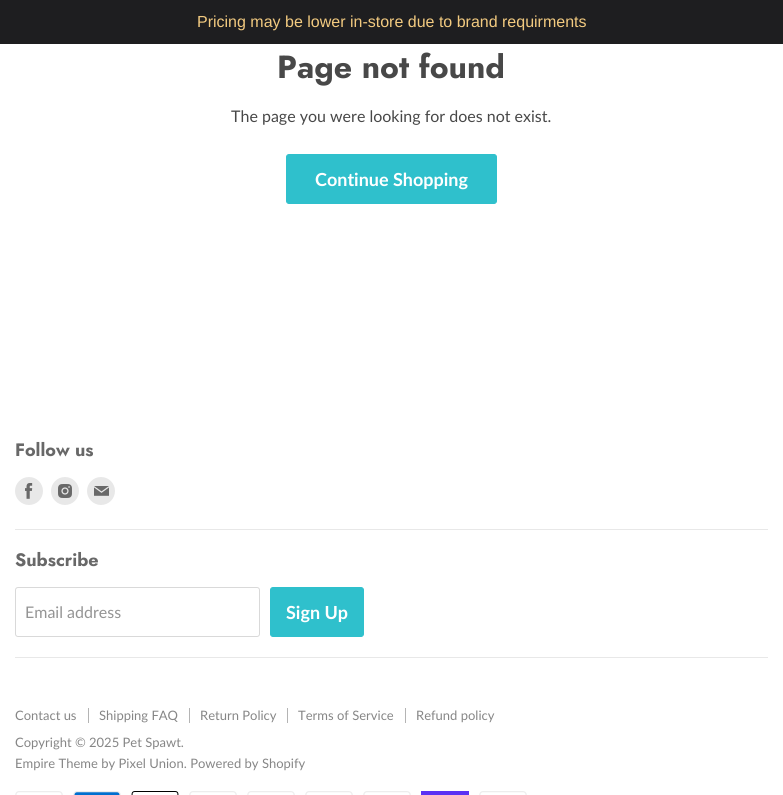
#include <cairo/cairo.h>
#include <math.h>
#include <stddef.h>

typedef struct { double x, y; const char *s; } line_t;
typedef struct { double x, y, w, h; unsigned color; } box_t;
static cairo_t *cr;

static void rgb(unsigned color)
{
	cairo_set_source_rgb(cr, (color >> 16) / 255.0, (color >> 8 & 255) / 255.0, (color & 255) / 255.0);
}

static void rrect(double x, double y, double w, double h, double r)
{
	cairo_new_sub_path(cr);
	cairo_arc(cr, x + w - r, y + h - r, r, 0, M_PI / 2);
	cairo_arc(cr, x + r, y + h - r, r, M_PI / 2, M_PI);
	cairo_arc(cr, x + r, y + r, r, M_PI, 1.5 * M_PI);
	cairo_arc(cr, x + w - r, y + r, r, 1.5 * M_PI, 2 * M_PI);
	cairo_close_path(cr);
}

static void image(const char *path, double x, double y, double w, double h)
{
	cairo_surface_t *image = cairo_image_surface_create_from_png(path);
	cairo_save(cr);
	cairo_set_source_surface(cr, image, x, y);
	cairo_rectangle(cr, x, y, w, h);
	cairo_fill(cr);
	cairo_restore(cr);
	cairo_surface_destroy(image);
}

int main(void) {
	cairo_surface_t *surface = cairo_image_surface_create(CAIRO_FORMAT_RGB24, 783, 795);
	cr = cairo_create(surface);
	cairo_font_options_t *options = cairo_font_options_create();
	cairo_font_options_set_hint_metrics(options, CAIRO_HINT_METRICS_OFF);
	cairo_font_options_set_hint_style(options, CAIRO_HINT_STYLE_NONE);
	cairo_set_font_options(cr, options);
	cairo_set_miter_limit(cr, 4);
	rgb(0xffffff);
	cairo_paint(cr);
	rgb(0x1e1e20);
	cairo_rectangle(cr, 0, 0, 783, 44);
	cairo_fill(cr);
	rgb(0x2fc0cc);
	rrect(286.5, 154.5, 210, 49, 2.5);
	cairo_fill_preserve(cr);
	cairo_set_line_width(cr, 1);
	cairo_stroke(cr);
	rgb(0xe8e8e8);
	cairo_rectangle(cr, 15, 529, 753, 1);
	cairo_fill(cr);
	cairo_arc(cr, 29, 491, 14, 0, 2 * M_PI);
	cairo_fill(cr);
	image("img/1.png", 25, 483, 8, 16);
	cairo_arc(cr, 65, 491, 14, 0, 2 * M_PI);
	cairo_fill(cr);
	image("img/2.png", 58, 484, 14, 14);
	cairo_arc(cr, 101, 491, 14, 0, 2 * M_PI);
	cairo_fill(cr);
	image("img/3.png", 94, 486, 15, 10);
	cairo_rectangle(cr, 15, 657, 753, 1);
	cairo_fill(cr);
	rrect(15.5, 587.5, 244, 49, 2.5);
	rgb(0xd9d9d9);
	cairo_stroke(cr);
	rgb(0x2fc0cc);
	rrect(270.5, 587.5, 93, 49, 2.5);
	cairo_fill_preserve(cr);
	cairo_stroke(cr);
	{
		static const box_t items[] = {
			{88, 708, 1, 15, 0xb4b4b4},
			{189, 708, 1, 15, 0xb4b4b4},
			{287, 708, 1, 15, 0xb4b4b4},
			{405, 708, 1, 15, 0xb4b4b4},
		};
		for (size_t i = 0; i < sizeof items / sizeof *items; i++) {
			rgb(items[i].color);
			cairo_rectangle(cr, items[i].x, items[i].y, items[i].w, items[i].h);
			cairo_fill(cr);
		}
	}
	image("img/4.png", 15, 791, 48, 4);
	image("img/5.png", 73, 791, 48, 4);
	image("img/6.png", 131, 791, 48, 4);
	image("img/4.png", 189, 791, 48, 4);
	image("img/4.png", 247, 791, 48, 4);
	image("img/4.png", 305, 791, 48, 4);
	image("img/4.png", 363, 791, 48, 4);
	rgb(0x5a31f4);
	cairo_rectangle(cr, 421, 791, 48, 4);
	cairo_fill(cr);
	image("img/4.png", 479, 791, 48, 4);
	cairo_select_font_face(cr, "Liberation Sans", CAIRO_FONT_SLANT_NORMAL, CAIRO_FONT_WEIGHT_NORMAL);
	cairo_set_font_size(cr, 16);
	rgb(0xf2ca80);
	cairo_move_to(cr, 197, 27);
	cairo_show_text(cr, "Pricing may be lower in-store due to brand requirments");
	cairo_select_font_face(cr, "Jost", CAIRO_FONT_SLANT_NORMAL, CAIRO_FONT_WEIGHT_BOLD);
	cairo_set_font_size(cr, 32);
	rgb(0x484848);
	cairo_move_to(cr, 277, 78);
	cairo_show_text(cr, "Page not found");
	cairo_select_font_face(cr, "Lato", CAIRO_FONT_SLANT_NORMAL, CAIRO_FONT_WEIGHT_NORMAL);
	cairo_set_font_size(cr, 16);
	cairo_move_to(cr, 231, 122);
	cairo_show_text(cr, "The page you were looking for does not exist.");
	cairo_select_font_face(cr, "Lato", CAIRO_FONT_SLANT_NORMAL, CAIRO_FONT_WEIGHT_BOLD);
	cairo_set_font_size(cr, 18);
	rgb(0xffffff);
	cairo_move_to(cr, 315, 186);
	cairo_show_text(cr, "Continue Shopping");
	cairo_select_font_face(cr, "Jost", CAIRO_FONT_SLANT_NORMAL, CAIRO_FONT_WEIGHT_BOLD);
	rgb(0x686868);
	cairo_move_to(cr, 15, 456);
	cairo_show_text(cr, "Follow us");
	cairo_move_to(cr, 15, 566);
	cairo_show_text(cr, "Subscribe");
	cairo_select_font_face(cr, "Lato", CAIRO_FONT_SLANT_NORMAL, CAIRO_FONT_WEIGHT_NORMAL);
	cairo_set_font_size(cr, 16);
	rgb(0x949494);
	cairo_move_to(cr, 25, 618);
	cairo_show_text(cr, "Email address");
	cairo_select_font_face(cr, "Lato", CAIRO_FONT_SLANT_NORMAL, CAIRO_FONT_WEIGHT_BOLD);
	cairo_set_font_size(cr, 18);
	rgb(0xffffff);
	cairo_move_to(cr, 286, 619);
	cairo_show_text(cr, "Sign Up");
	cairo_select_font_face(cr, "Lato", CAIRO_FONT_SLANT_NORMAL, CAIRO_FONT_WEIGHT_NORMAL);
	cairo_set_font_size(cr, 13);
	rgb(0x868686);
	{
		static const line_t items[] = {
			{15, 720, "Contact us"},
			{99, 720, "Shipping FAQ"},
			{200, 720, "Return Policy"},
			{298, 720, "Terms of Service"},
			{416, 720, "Refund policy"},
			{15, 747, "Copyright © 2025 Pet Spawt."},
			{15, 768, "Empire Theme by Pixel Union. Powered by Shopify"},
		};
		for (size_t i = 0; i < sizeof items / sizeof *items; i++) {
			cairo_move_to(cr, items[i].x, items[i].y);
			cairo_show_text(cr, items[i].s);
		}
	}
	cairo_surface_write_to_png(surface, "page.png");
	cairo_font_options_destroy(options);
	cairo_destroy(cr);
	cairo_surface_destroy(surface);
	return 0;
}
